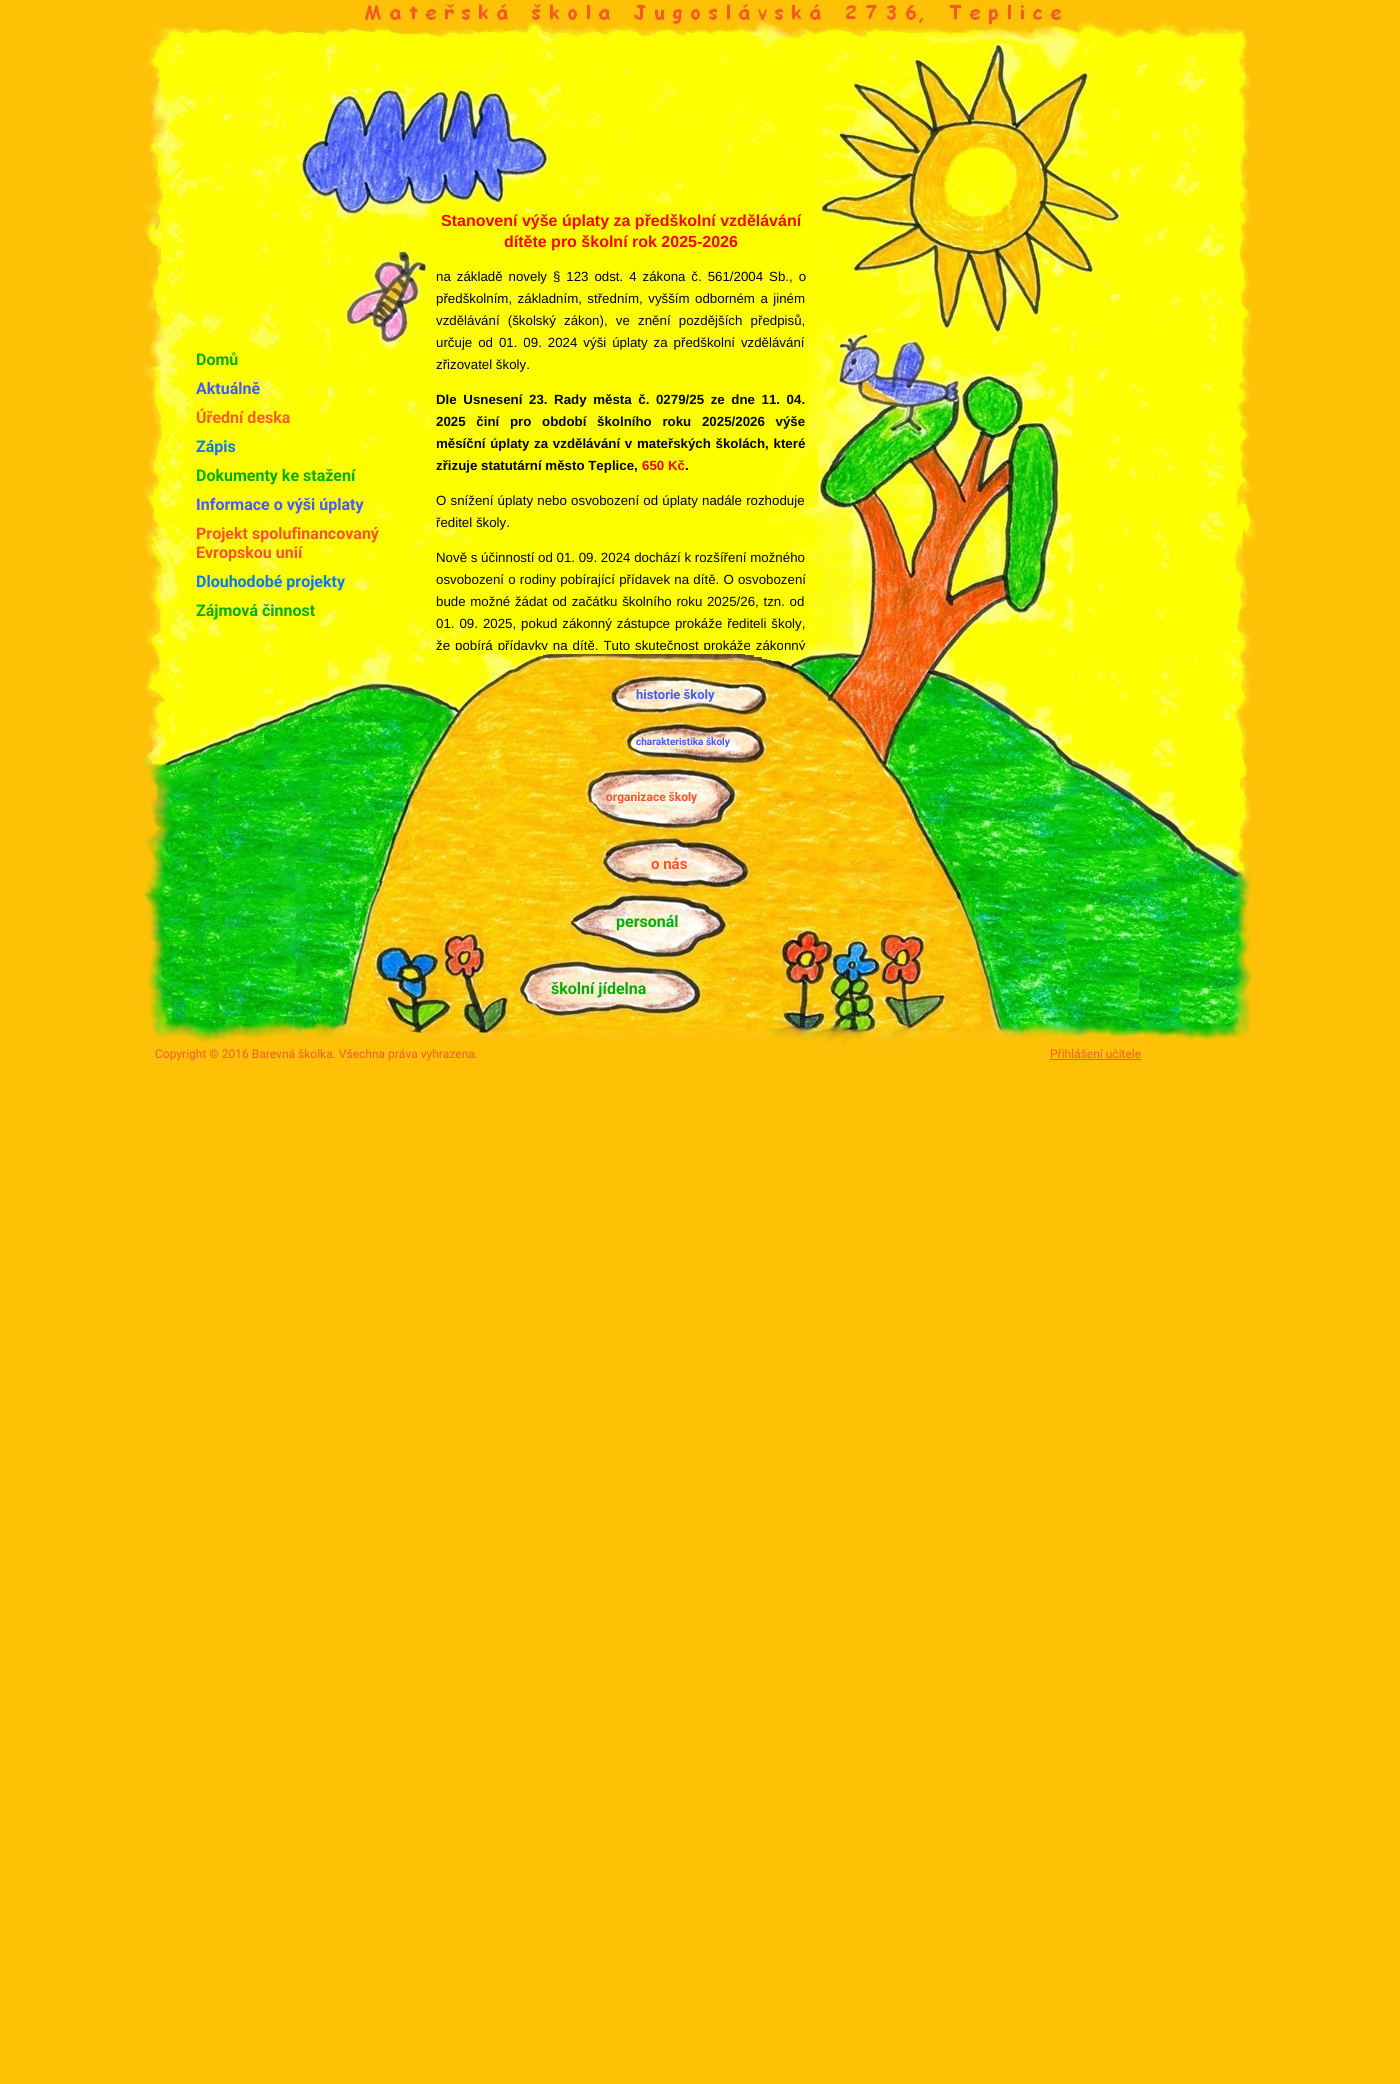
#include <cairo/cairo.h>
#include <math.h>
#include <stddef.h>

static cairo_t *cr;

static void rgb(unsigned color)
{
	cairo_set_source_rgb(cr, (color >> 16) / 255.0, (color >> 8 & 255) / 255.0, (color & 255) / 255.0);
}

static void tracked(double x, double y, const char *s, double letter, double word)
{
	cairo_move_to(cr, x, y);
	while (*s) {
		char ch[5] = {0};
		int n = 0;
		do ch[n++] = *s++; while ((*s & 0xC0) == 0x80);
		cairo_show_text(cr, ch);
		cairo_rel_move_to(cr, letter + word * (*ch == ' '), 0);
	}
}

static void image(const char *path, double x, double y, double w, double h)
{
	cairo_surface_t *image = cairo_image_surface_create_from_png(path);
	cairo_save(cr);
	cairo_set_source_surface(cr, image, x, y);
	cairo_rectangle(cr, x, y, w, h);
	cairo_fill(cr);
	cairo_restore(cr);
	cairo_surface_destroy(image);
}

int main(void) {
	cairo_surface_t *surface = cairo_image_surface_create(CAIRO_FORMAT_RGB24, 1400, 2084);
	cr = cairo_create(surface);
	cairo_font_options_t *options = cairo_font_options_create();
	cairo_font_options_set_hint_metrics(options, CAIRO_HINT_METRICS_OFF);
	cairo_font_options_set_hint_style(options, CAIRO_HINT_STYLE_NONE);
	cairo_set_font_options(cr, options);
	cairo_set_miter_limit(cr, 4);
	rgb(0xfec106);
	cairo_paint(cr);
	image("img/1.png", 141, 0, 1120, 1045);
	rgb(0xfd5a2e);
	cairo_rectangle(cr, 1050, 1059, 91, 1);
	cairo_fill(cr);
	cairo_select_font_face(cr, "Roboto", CAIRO_FONT_SLANT_NORMAL, CAIRO_FONT_WEIGHT_BOLD);
	cairo_set_font_size(cr, 16);
	rgb(0x03ac0d);
	cairo_move_to(cr, 196, 365);
	cairo_show_text(cr, "Domů");
	rgb(0x455af7);
	cairo_move_to(cr, 196, 394);
	cairo_show_text(cr, "Aktuálně");
	rgb(0xfd5a2e);
	cairo_move_to(cr, 196, 423);
	cairo_show_text(cr, "Úřední deska");
	rgb(0x047af1);
	cairo_move_to(cr, 196, 452);
	cairo_show_text(cr, "Zápis");
	rgb(0x03ac0d);
	cairo_move_to(cr, 196, 481);
	cairo_show_text(cr, "Dokumenty ke stažení");
	rgb(0x455af7);
	cairo_move_to(cr, 196, 510);
	cairo_show_text(cr, "Informace o výši úplaty");
	rgb(0xfd522d);
	cairo_move_to(cr, 196, 539);
	cairo_show_text(cr, "Projekt spolufinancovaný");
	cairo_move_to(cr, 196, 558);
	cairo_show_text(cr, "Evropskou unií");
	rgb(0x047af1);
	cairo_move_to(cr, 196, 587);
	cairo_show_text(cr, "Dlouhodobé projekty");
	rgb(0x03ac0d);
	cairo_move_to(cr, 196, 616);
	cairo_show_text(cr, "Zájmová činnost");
	cairo_select_font_face(cr, "Liberation Sans", CAIRO_FONT_SLANT_NORMAL, CAIRO_FONT_WEIGHT_BOLD);
	rgb(0xff0000);
	cairo_move_to(cr, 441, 226);
	cairo_show_text(cr, "Stanovení výše úplaty za předškolní vzdělávání");
	cairo_move_to(cr, 504, 247);
	cairo_show_text(cr, "dítěte pro školní rok 2025-2026");
	cairo_select_font_face(cr, "Liberation Sans", CAIRO_FONT_SLANT_NORMAL, CAIRO_FONT_WEIGHT_NORMAL);
	cairo_set_font_size(cr, 13.3);
	rgb(0x000000);
	tracked(436, 281, "na základě novely § 123 odst. 4 zákona č. 561/2004 Sb., o", 0, 2.25);
	tracked(436, 303, "předškolním, základním, středním, vyšším odborném a jiném", 0, 1.75);
	tracked(436, 325, "vzdělávání (školský zákon), ve znění pozdějších předpisů,", 0, 4.5);
	tracked(436, 347, "určuje od 01. 09. 2024 výši úplaty za předškolní vzdělávání", 0, 2.25);
	cairo_move_to(cr, 436, 369);
	cairo_show_text(cr, "zřizovatel školy.");
	cairo_select_font_face(cr, "Liberation Sans", CAIRO_FONT_SLANT_NORMAL, CAIRO_FONT_WEIGHT_BOLD);
	tracked(436, 404, "Dle Usnesení 23. Rady města č. 0279/25 ze dne 11. 04.", 0, 2.9);
	tracked(436, 426, "2025 činí pro období školního roku 2025/2026 výše", 0, 7);
	tracked(436, 448, "měsíční úplaty za vzdělávání v mateřských školách, které", 0, 1);
	cairo_move_to(cr, 436, 470);
	cairo_show_text(cr, "zřizuje statutární město Teplice,");
	rgb(0xff0000);
	cairo_move_to(cr, 642, 470);
	cairo_show_text(cr, "650 Kč");
	rgb(0x000000);
	cairo_move_to(cr, 685, 470);
	cairo_show_text(cr, ".");
	cairo_select_font_face(cr, "Liberation Sans", CAIRO_FONT_SLANT_NORMAL, CAIRO_FONT_WEIGHT_NORMAL);
	tracked(436, 505, "O snížení úplaty nebo osvobození od úplaty nadále rozhoduje", 0, 0.5);
	cairo_move_to(cr, 436, 527);
	cairo_show_text(cr, "ředitel školy.");
	cairo_move_to(cr, 436, 562);
	cairo_show_text(cr, "Nově s účinností od 01. 09. 2024 dochází k rozšíření možného");
	tracked(436, 584, "osvobození o rodiny pobírající přídavek na dítě. O osvobození", 0, 0.5);
	tracked(436, 606, "bude možné žádat od začátku školního roku 2025/26, tzn. od", 0, 1);
	tracked(436, 628, "01. 09. 2025, pokud zákonný zástupce prokáže řediteli školy,", 0, 1.25);
	cairo_save(cr);
	cairo_rectangle(cr, 436, 210, 380, 440);
	cairo_clip(cr);
	tracked(436, 650, "že pobírá přídavky na dítě. Tuto skutečnost prokáže zákonný", 0, 1.25);
	cairo_restore(cr);
	cairo_select_font_face(cr, "Roboto", CAIRO_FONT_SLANT_NORMAL, CAIRO_FONT_WEIGHT_BOLD);
	cairo_set_font_size(cr, 13);
	rgb(0x455af7);
	cairo_move_to(cr, 636, 699);
	cairo_show_text(cr, "historie školy");
	cairo_set_font_size(cr, 10);
	cairo_move_to(cr, 636, 745);
	cairo_show_text(cr, "charakteristika školy");
	cairo_set_font_size(cr, 12);
	rgb(0xfd522d);
	cairo_move_to(cr, 606, 801);
	cairo_show_text(cr, "organizace školy");
	cairo_set_font_size(cr, 15);
	cairo_move_to(cr, 651, 869);
	cairo_show_text(cr, "o nás");
	cairo_set_font_size(cr, 16);
	rgb(0x03ac0d);
	cairo_move_to(cr, 616, 927);
	cairo_show_text(cr, "personál");
	cairo_move_to(cr, 551, 994);
	cairo_show_text(cr, "školní jídelna");
	cairo_select_font_face(cr, "Roboto", CAIRO_FONT_SLANT_NORMAL, CAIRO_FONT_WEIGHT_NORMAL);
	cairo_set_font_size(cr, 12);
	rgb(0xfd5a2e);
	cairo_move_to(cr, 155, 1058);
	cairo_show_text(cr, "Copyright © 2016 Barevná školka. Všechna práva vyhrazena.");
	cairo_move_to(cr, 1050, 1058);
	cairo_show_text(cr, "Přihlášení učitele");
	cairo_surface_write_to_png(surface, "page.png");
	cairo_font_options_destroy(options);
	cairo_destroy(cr);
	cairo_surface_destroy(surface);
	return 0;
}
